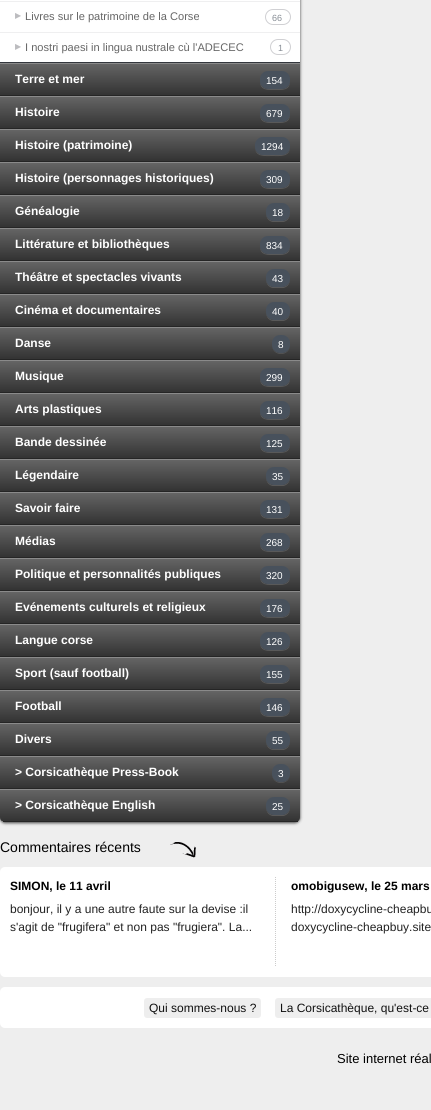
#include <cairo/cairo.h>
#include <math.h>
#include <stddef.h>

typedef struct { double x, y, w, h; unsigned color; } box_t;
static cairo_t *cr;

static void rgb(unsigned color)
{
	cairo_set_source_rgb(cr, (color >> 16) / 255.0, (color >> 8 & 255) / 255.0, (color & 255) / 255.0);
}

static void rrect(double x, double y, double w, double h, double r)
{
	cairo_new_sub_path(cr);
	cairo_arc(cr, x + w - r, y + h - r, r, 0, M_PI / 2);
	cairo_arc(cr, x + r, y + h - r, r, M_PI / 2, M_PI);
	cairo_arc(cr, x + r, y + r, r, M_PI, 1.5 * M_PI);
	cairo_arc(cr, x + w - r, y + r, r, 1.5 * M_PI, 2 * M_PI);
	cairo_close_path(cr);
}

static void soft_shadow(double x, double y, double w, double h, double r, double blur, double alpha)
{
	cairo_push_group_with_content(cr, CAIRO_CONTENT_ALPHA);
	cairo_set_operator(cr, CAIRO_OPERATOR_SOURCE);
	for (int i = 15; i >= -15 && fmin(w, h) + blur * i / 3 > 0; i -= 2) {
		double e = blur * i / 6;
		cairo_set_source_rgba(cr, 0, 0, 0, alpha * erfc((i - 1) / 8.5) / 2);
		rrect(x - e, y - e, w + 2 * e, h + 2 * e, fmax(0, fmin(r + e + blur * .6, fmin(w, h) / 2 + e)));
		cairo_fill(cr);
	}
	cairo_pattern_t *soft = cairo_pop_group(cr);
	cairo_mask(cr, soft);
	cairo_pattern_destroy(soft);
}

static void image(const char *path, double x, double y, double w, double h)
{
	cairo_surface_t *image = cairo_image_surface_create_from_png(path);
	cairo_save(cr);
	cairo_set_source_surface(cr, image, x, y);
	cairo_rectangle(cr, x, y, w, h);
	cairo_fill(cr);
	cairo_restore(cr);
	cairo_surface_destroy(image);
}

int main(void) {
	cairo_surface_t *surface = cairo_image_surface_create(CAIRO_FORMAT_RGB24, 431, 1110);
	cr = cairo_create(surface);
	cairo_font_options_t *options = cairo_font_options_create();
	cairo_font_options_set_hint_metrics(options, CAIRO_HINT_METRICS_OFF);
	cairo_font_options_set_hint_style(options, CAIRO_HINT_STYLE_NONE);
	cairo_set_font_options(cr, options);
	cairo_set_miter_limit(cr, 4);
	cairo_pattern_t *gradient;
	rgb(0xeeeeee);
	cairo_paint(cr);
	rgb(0x000000);
	soft_shadow(0, -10, 300, 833, 5, 1.5, 0.73);
	{
		static const box_t items[] = {
			{0, 0, 300, 1, 0xffffff},
			{0, 1, 300, 1, 0xefeff0},
			{0, 2, 300, 30, 0xffffff},
			{0, 32, 300, 1, 0xefeff0},
		};
		for (size_t i = 0; i < sizeof items / sizeof *items; i++) {
			rgb(items[i].color);
			cairo_rectangle(cr, items[i].x, items[i].y, items[i].w, items[i].h);
			cairo_fill(cr);
		}
	}
	rrect(265.5, 9.5, 25, 15, 7.5);
	rgb(0xd0d0d3);
	cairo_set_line_width(cr, 1);
	cairo_stroke(cr);
	rgb(0xffffff);
	cairo_rectangle(cr, 0, 33, 300, 29);
	cairo_fill(cr);
	rgb(0x33373d);
	cairo_rectangle(cr, 0, 62, 300, 1);
	cairo_fill(cr);
	rrect(270.5, 39.5, 20, 15, 7.5);
	rgb(0xd0d0d3);
	cairo_stroke(cr);
	gradient = cairo_pattern_create_linear(150, 63, 150, 95);
	cairo_pattern_add_color_stop_rgba(gradient, 0, 0.4, 0.4, 0.4, 1);
	cairo_pattern_add_color_stop_rgba(gradient, 1, 0.2, 0.2, 0.2, 1);
	cairo_set_source(cr, gradient);
	cairo_pattern_destroy(gradient);
	cairo_rectangle(cr, 0, 64, 300, 31);
	cairo_fill(cr);
	rgb(0x8a8a8a);
	cairo_rectangle(cr, 0, 63, 300, 1);
	cairo_fill(cr);
	rgb(0x252525);
	cairo_rectangle(cr, 0, 95, 300, 1);
	cairo_fill(cr);
	cairo_set_source_rgba(cr, 1, 1, 1, 0.15);
	cairo_new_path(cr);
	cairo_move_to(cr, 260, 81);
	cairo_curve_to(cr, 260, 91, 268, 90, 275, 90);
	cairo_curve_to(cr, 282, 90, 290, 91, 290, 81);
	cairo_curve_to(cr, 290, 85.5, 286.5, 89, 282, 89);
	cairo_line_to(cr, 268, 89);
	cairo_curve_to(cr, 263.5, 89, 260, 85.5, 260, 81);
	cairo_close_path(cr);
	cairo_fill(cr);
	rgb(0x48515c);
	rrect(260, 71, 30, 18, 8);
	cairo_fill(cr);
	gradient = cairo_pattern_create_linear(150, 96, 150, 128);
	cairo_pattern_add_color_stop_rgba(gradient, 0, 0.4, 0.4, 0.4, 1);
	cairo_pattern_add_color_stop_rgba(gradient, 1, 0.2, 0.2, 0.2, 1);
	cairo_set_source(cr, gradient);
	cairo_pattern_destroy(gradient);
	cairo_rectangle(cr, 0, 97, 300, 31);
	cairo_fill(cr);
	rgb(0x8a8a8a);
	cairo_rectangle(cr, 0, 96, 300, 1);
	cairo_fill(cr);
	rgb(0x252525);
	cairo_rectangle(cr, 0, 128, 300, 1);
	cairo_fill(cr);
	cairo_set_source_rgba(cr, 1, 1, 1, 0.15);
	cairo_new_path(cr);
	cairo_move_to(cr, 260, 114);
	cairo_curve_to(cr, 260, 124, 268, 123, 275, 123);
	cairo_curve_to(cr, 282, 123, 290, 124, 290, 114);
	cairo_curve_to(cr, 290, 118.5, 286.5, 122, 282, 122);
	cairo_line_to(cr, 268, 122);
	cairo_curve_to(cr, 263.5, 122, 260, 118.5, 260, 114);
	cairo_close_path(cr);
	cairo_fill(cr);
	rgb(0x48515c);
	rrect(260, 104, 30, 18, 8);
	cairo_fill(cr);
	gradient = cairo_pattern_create_linear(150, 129, 150, 161);
	cairo_pattern_add_color_stop_rgba(gradient, 0, 0.4, 0.4, 0.4, 1);
	cairo_pattern_add_color_stop_rgba(gradient, 1, 0.2, 0.2, 0.2, 1);
	cairo_set_source(cr, gradient);
	cairo_pattern_destroy(gradient);
	cairo_rectangle(cr, 0, 130, 300, 31);
	cairo_fill(cr);
	rgb(0x8a8a8a);
	cairo_rectangle(cr, 0, 129, 300, 1);
	cairo_fill(cr);
	rgb(0x252525);
	cairo_rectangle(cr, 0, 161, 300, 1);
	cairo_fill(cr);
	cairo_set_source_rgba(cr, 1, 1, 1, 0.15);
	cairo_new_path(cr);
	cairo_move_to(cr, 255, 147);
	cairo_curve_to(cr, 255, 157.5, 265, 156, 272.5, 156);
	cairo_curve_to(cr, 280, 156, 290, 157.5, 290, 147);
	cairo_curve_to(cr, 290, 156.5, 279, 155, 272.5, 155);
	cairo_curve_to(cr, 266, 155, 255, 156.5, 255, 147);
	cairo_close_path(cr);
	cairo_fill(cr);
	rgb(0x48515c);
	rrect(255, 137, 35, 18, 8);
	cairo_fill(cr);
	gradient = cairo_pattern_create_linear(150, 162, 150, 194);
	cairo_pattern_add_color_stop_rgba(gradient, 0, 0.4, 0.4, 0.4, 1);
	cairo_pattern_add_color_stop_rgba(gradient, 1, 0.2, 0.2, 0.2, 1);
	cairo_set_source(cr, gradient);
	cairo_pattern_destroy(gradient);
	cairo_rectangle(cr, 0, 163, 300, 31);
	cairo_fill(cr);
	rgb(0x8a8a8a);
	cairo_rectangle(cr, 0, 162, 300, 1);
	cairo_fill(cr);
	rgb(0x252525);
	cairo_rectangle(cr, 0, 194, 300, 1);
	cairo_fill(cr);
	cairo_set_source_rgba(cr, 1, 1, 1, 0.15);
	cairo_new_path(cr);
	cairo_move_to(cr, 260, 180);
	cairo_curve_to(cr, 260, 190, 268, 189, 275, 189);
	cairo_curve_to(cr, 282, 189, 290, 190, 290, 180);
	cairo_curve_to(cr, 290, 184.5, 286.5, 188, 282, 188);
	cairo_line_to(cr, 268, 188);
	cairo_curve_to(cr, 263.5, 188, 260, 184.5, 260, 180);
	cairo_close_path(cr);
	cairo_fill(cr);
	rgb(0x48515c);
	rrect(260, 170, 30, 18, 8);
	cairo_fill(cr);
	gradient = cairo_pattern_create_linear(150, 195, 150, 227);
	cairo_pattern_add_color_stop_rgba(gradient, 0, 0.4, 0.4, 0.4, 1);
	cairo_pattern_add_color_stop_rgba(gradient, 1, 0.2, 0.2, 0.2, 1);
	cairo_set_source(cr, gradient);
	cairo_pattern_destroy(gradient);
	cairo_rectangle(cr, 0, 196, 300, 31);
	cairo_fill(cr);
	rgb(0x8a8a8a);
	cairo_rectangle(cr, 0, 195, 300, 1);
	cairo_fill(cr);
	rgb(0x252525);
	cairo_rectangle(cr, 0, 227, 300, 1);
	cairo_fill(cr);
	cairo_set_source_rgba(cr, 1, 1, 1, 0.15);
	cairo_new_path(cr);
	cairo_move_to(cr, 266, 213);
	cairo_curve_to(cr, 266, 217, 268, 221, 272.5, 222);
	cairo_line_to(cr, 283.5, 222);
	cairo_curve_to(cr, 288, 221, 290, 217, 290, 213);
	cairo_curve_to(cr, 290, 217.5, 286.5, 221, 282, 221);
	cairo_line_to(cr, 274, 221);
	cairo_curve_to(cr, 269.5, 221, 266, 217.5, 266, 213);
	cairo_close_path(cr);
	cairo_fill(cr);
	rgb(0x48515c);
	rrect(266, 203, 24, 18, 8);
	cairo_fill(cr);
	gradient = cairo_pattern_create_linear(150, 228, 150, 260);
	cairo_pattern_add_color_stop_rgba(gradient, 0, 0.4, 0.4, 0.4, 1);
	cairo_pattern_add_color_stop_rgba(gradient, 1, 0.2, 0.2, 0.2, 1);
	cairo_set_source(cr, gradient);
	cairo_pattern_destroy(gradient);
	cairo_rectangle(cr, 0, 229, 300, 31);
	cairo_fill(cr);
	rgb(0x8a8a8a);
	cairo_rectangle(cr, 0, 228, 300, 1);
	cairo_fill(cr);
	rgb(0x252525);
	cairo_rectangle(cr, 0, 260, 300, 1);
	cairo_fill(cr);
	cairo_set_source_rgba(cr, 1, 1, 1, 0.15);
	cairo_new_path(cr);
	cairo_move_to(cr, 260, 246);
	cairo_curve_to(cr, 260, 256, 268, 255, 275, 255);
	cairo_curve_to(cr, 282, 255, 290, 256, 290, 246);
	cairo_curve_to(cr, 290, 250.5, 286.5, 254, 282, 254);
	cairo_line_to(cr, 268, 254);
	cairo_curve_to(cr, 263.5, 254, 260, 250.5, 260, 246);
	cairo_close_path(cr);
	cairo_fill(cr);
	rgb(0x48515c);
	rrect(260, 236, 30, 18, 8);
	cairo_fill(cr);
	gradient = cairo_pattern_create_linear(150, 261, 150, 293);
	cairo_pattern_add_color_stop_rgba(gradient, 0, 0.4, 0.4, 0.4, 1);
	cairo_pattern_add_color_stop_rgba(gradient, 1, 0.2, 0.2, 0.2, 1);
	cairo_set_source(cr, gradient);
	cairo_pattern_destroy(gradient);
	cairo_rectangle(cr, 0, 262, 300, 31);
	cairo_fill(cr);
	rgb(0x8a8a8a);
	cairo_rectangle(cr, 0, 261, 300, 1);
	cairo_fill(cr);
	rgb(0x252525);
	cairo_rectangle(cr, 0, 293, 300, 1);
	cairo_fill(cr);
	cairo_set_source_rgba(cr, 1, 1, 1, 0.15);
	cairo_new_path(cr);
	cairo_move_to(cr, 266, 279);
	cairo_curve_to(cr, 266, 283, 268, 287, 272.5, 288);
	cairo_line_to(cr, 283.5, 288);
	cairo_curve_to(cr, 288, 287, 290, 283, 290, 279);
	cairo_curve_to(cr, 290, 283.5, 286.5, 287, 282, 287);
	cairo_line_to(cr, 274, 287);
	cairo_curve_to(cr, 269.5, 287, 266, 283.5, 266, 279);
	cairo_close_path(cr);
	cairo_fill(cr);
	rgb(0x48515c);
	rrect(266, 269, 24, 18, 8);
	cairo_fill(cr);
	gradient = cairo_pattern_create_linear(150, 294, 150, 326);
	cairo_pattern_add_color_stop_rgba(gradient, 0, 0.4, 0.4, 0.4, 1);
	cairo_pattern_add_color_stop_rgba(gradient, 1, 0.2, 0.2, 0.2, 1);
	cairo_set_source(cr, gradient);
	cairo_pattern_destroy(gradient);
	cairo_rectangle(cr, 0, 295, 300, 31);
	cairo_fill(cr);
	rgb(0x8a8a8a);
	cairo_rectangle(cr, 0, 294, 300, 1);
	cairo_fill(cr);
	rgb(0x252525);
	cairo_rectangle(cr, 0, 326, 300, 1);
	cairo_fill(cr);
	cairo_set_source_rgba(cr, 1, 1, 1, 0.15);
	cairo_new_path(cr);
	cairo_move_to(cr, 266, 312);
	cairo_curve_to(cr, 266, 316, 268, 320, 272.5, 321);
	cairo_line_to(cr, 283.5, 321);
	cairo_curve_to(cr, 288, 320, 290, 316, 290, 312);
	cairo_curve_to(cr, 290, 316.5, 286.5, 320, 282, 320);
	cairo_line_to(cr, 274, 320);
	cairo_curve_to(cr, 269.5, 320, 266, 316.5, 266, 312);
	cairo_close_path(cr);
	cairo_fill(cr);
	rgb(0x48515c);
	rrect(266, 302, 24, 18, 8);
	cairo_fill(cr);
	gradient = cairo_pattern_create_linear(150, 327, 150, 359);
	cairo_pattern_add_color_stop_rgba(gradient, 0, 0.4, 0.4, 0.4, 1);
	cairo_pattern_add_color_stop_rgba(gradient, 1, 0.2, 0.2, 0.2, 1);
	cairo_set_source(cr, gradient);
	cairo_pattern_destroy(gradient);
	cairo_rectangle(cr, 0, 328, 300, 31);
	cairo_fill(cr);
	rgb(0x8a8a8a);
	cairo_rectangle(cr, 0, 327, 300, 1);
	cairo_fill(cr);
	rgb(0x252525);
	cairo_rectangle(cr, 0, 359, 300, 1);
	cairo_fill(cr);
	rgb(0x595959);
	cairo_new_path(cr);
	cairo_move_to(cr, 272, 345);
	cairo_curve_to(cr, 272, 357, 290, 357, 290, 345);
	cairo_curve_to(cr, 290, 356, 272, 356, 272, 345);
	cairo_close_path(cr);
	cairo_fill(cr);
	rgb(0x48515c);
	rrect(272, 335, 18, 18, 8);
	cairo_fill(cr);
	gradient = cairo_pattern_create_linear(150, 360, 150, 392);
	cairo_pattern_add_color_stop_rgba(gradient, 0, 0.4, 0.4, 0.4, 1);
	cairo_pattern_add_color_stop_rgba(gradient, 1, 0.2, 0.2, 0.2, 1);
	cairo_set_source(cr, gradient);
	cairo_pattern_destroy(gradient);
	cairo_rectangle(cr, 0, 361, 300, 31);
	cairo_fill(cr);
	rgb(0x8a8a8a);
	cairo_rectangle(cr, 0, 360, 300, 1);
	cairo_fill(cr);
	rgb(0x252525);
	cairo_rectangle(cr, 0, 392, 300, 1);
	cairo_fill(cr);
	cairo_set_source_rgba(cr, 1, 1, 1, 0.15);
	cairo_new_path(cr);
	cairo_move_to(cr, 260, 378);
	cairo_curve_to(cr, 260, 388, 268, 387, 275, 387);
	cairo_curve_to(cr, 282, 387, 290, 388, 290, 378);
	cairo_curve_to(cr, 290, 382.5, 286.5, 386, 282, 386);
	cairo_line_to(cr, 268, 386);
	cairo_curve_to(cr, 263.5, 386, 260, 382.5, 260, 378);
	cairo_close_path(cr);
	cairo_fill(cr);
	rgb(0x48515c);
	rrect(260, 368, 30, 18, 8);
	cairo_fill(cr);
	gradient = cairo_pattern_create_linear(150, 393, 150, 425);
	cairo_pattern_add_color_stop_rgba(gradient, 0, 0.4, 0.4, 0.4, 1);
	cairo_pattern_add_color_stop_rgba(gradient, 1, 0.2, 0.2, 0.2, 1);
	cairo_set_source(cr, gradient);
	cairo_pattern_destroy(gradient);
	cairo_rectangle(cr, 0, 394, 300, 31);
	cairo_fill(cr);
	rgb(0x8a8a8a);
	cairo_rectangle(cr, 0, 393, 300, 1);
	cairo_fill(cr);
	rgb(0x252525);
	cairo_rectangle(cr, 0, 425, 300, 1);
	cairo_fill(cr);
	cairo_set_source_rgba(cr, 1, 1, 1, 0.15);
	cairo_new_path(cr);
	cairo_move_to(cr, 260, 411);
	cairo_curve_to(cr, 260, 421, 268, 420, 275, 420);
	cairo_curve_to(cr, 282, 420, 290, 421, 290, 411);
	cairo_curve_to(cr, 290, 415.5, 286.5, 419, 282, 419);
	cairo_line_to(cr, 268, 419);
	cairo_curve_to(cr, 263.5, 419, 260, 415.5, 260, 411);
	cairo_close_path(cr);
	cairo_fill(cr);
	rgb(0x48515c);
	rrect(260, 401, 30, 18, 8);
	cairo_fill(cr);
	gradient = cairo_pattern_create_linear(150, 426, 150, 458);
	cairo_pattern_add_color_stop_rgba(gradient, 0, 0.4, 0.4, 0.4, 1);
	cairo_pattern_add_color_stop_rgba(gradient, 1, 0.2, 0.2, 0.2, 1);
	cairo_set_source(cr, gradient);
	cairo_pattern_destroy(gradient);
	cairo_rectangle(cr, 0, 427, 300, 31);
	cairo_fill(cr);
	rgb(0x8a8a8a);
	cairo_rectangle(cr, 0, 426, 300, 1);
	cairo_fill(cr);
	rgb(0x252525);
	cairo_rectangle(cr, 0, 458, 300, 1);
	cairo_fill(cr);
	cairo_set_source_rgba(cr, 1, 1, 1, 0.15);
	cairo_new_path(cr);
	cairo_move_to(cr, 260, 444);
	cairo_curve_to(cr, 260, 454, 268, 453, 275, 453);
	cairo_curve_to(cr, 282, 453, 290, 454, 290, 444);
	cairo_curve_to(cr, 290, 448.5, 286.5, 452, 282, 452);
	cairo_line_to(cr, 268, 452);
	cairo_curve_to(cr, 263.5, 452, 260, 448.5, 260, 444);
	cairo_close_path(cr);
	cairo_fill(cr);
	rgb(0x48515c);
	rrect(260, 434, 30, 18, 8);
	cairo_fill(cr);
	gradient = cairo_pattern_create_linear(150, 459, 150, 491);
	cairo_pattern_add_color_stop_rgba(gradient, 0, 0.4, 0.4, 0.4, 1);
	cairo_pattern_add_color_stop_rgba(gradient, 1, 0.2, 0.2, 0.2, 1);
	cairo_set_source(cr, gradient);
	cairo_pattern_destroy(gradient);
	cairo_rectangle(cr, 0, 460, 300, 31);
	cairo_fill(cr);
	rgb(0x8a8a8a);
	cairo_rectangle(cr, 0, 459, 300, 1);
	cairo_fill(cr);
	rgb(0x252525);
	cairo_rectangle(cr, 0, 491, 300, 1);
	cairo_fill(cr);
	cairo_set_source_rgba(cr, 1, 1, 1, 0.15);
	cairo_new_path(cr);
	cairo_move_to(cr, 266, 477);
	cairo_curve_to(cr, 266, 481, 268, 485, 272.5, 486);
	cairo_line_to(cr, 283.5, 486);
	cairo_curve_to(cr, 288, 485, 290, 481, 290, 477);
	cairo_curve_to(cr, 290, 481.5, 286.5, 485, 282, 485);
	cairo_line_to(cr, 274, 485);
	cairo_curve_to(cr, 269.5, 485, 266, 481.5, 266, 477);
	cairo_close_path(cr);
	cairo_fill(cr);
	rgb(0x48515c);
	rrect(266, 467, 24, 18, 8);
	cairo_fill(cr);
	gradient = cairo_pattern_create_linear(150, 492, 150, 524);
	cairo_pattern_add_color_stop_rgba(gradient, 0, 0.4, 0.4, 0.4, 1);
	cairo_pattern_add_color_stop_rgba(gradient, 1, 0.2, 0.2, 0.2, 1);
	cairo_set_source(cr, gradient);
	cairo_pattern_destroy(gradient);
	cairo_rectangle(cr, 0, 493, 300, 31);
	cairo_fill(cr);
	rgb(0x8a8a8a);
	cairo_rectangle(cr, 0, 492, 300, 1);
	cairo_fill(cr);
	rgb(0x252525);
	cairo_rectangle(cr, 0, 524, 300, 1);
	cairo_fill(cr);
	cairo_set_source_rgba(cr, 1, 1, 1, 0.15);
	cairo_new_path(cr);
	cairo_move_to(cr, 260, 510);
	cairo_curve_to(cr, 260, 520, 268, 519, 275, 519);
	cairo_curve_to(cr, 282, 519, 290, 520, 290, 510);
	cairo_curve_to(cr, 290, 514.5, 286.5, 518, 282, 518);
	cairo_line_to(cr, 268, 518);
	cairo_curve_to(cr, 263.5, 518, 260, 514.5, 260, 510);
	cairo_close_path(cr);
	cairo_fill(cr);
	rgb(0x48515c);
	rrect(260, 500, 30, 18, 8);
	cairo_fill(cr);
	gradient = cairo_pattern_create_linear(150, 525, 150, 557);
	cairo_pattern_add_color_stop_rgba(gradient, 0, 0.4, 0.4, 0.4, 1);
	cairo_pattern_add_color_stop_rgba(gradient, 1, 0.2, 0.2, 0.2, 1);
	cairo_set_source(cr, gradient);
	cairo_pattern_destroy(gradient);
	cairo_rectangle(cr, 0, 526, 300, 31);
	cairo_fill(cr);
	rgb(0x8a8a8a);
	cairo_rectangle(cr, 0, 525, 300, 1);
	cairo_fill(cr);
	rgb(0x252525);
	cairo_rectangle(cr, 0, 557, 300, 1);
	cairo_fill(cr);
	cairo_set_source_rgba(cr, 1, 1, 1, 0.15);
	cairo_new_path(cr);
	cairo_move_to(cr, 260, 543);
	cairo_curve_to(cr, 260, 553, 268, 552, 275, 552);
	cairo_curve_to(cr, 282, 552, 290, 553, 290, 543);
	cairo_curve_to(cr, 290, 547.5, 286.5, 551, 282, 551);
	cairo_line_to(cr, 268, 551);
	cairo_curve_to(cr, 263.5, 551, 260, 547.5, 260, 543);
	cairo_close_path(cr);
	cairo_fill(cr);
	rgb(0x48515c);
	rrect(260, 533, 30, 18, 8);
	cairo_fill(cr);
	gradient = cairo_pattern_create_linear(150, 558, 150, 590);
	cairo_pattern_add_color_stop_rgba(gradient, 0, 0.4, 0.4, 0.4, 1);
	cairo_pattern_add_color_stop_rgba(gradient, 1, 0.2, 0.2, 0.2, 1);
	cairo_set_source(cr, gradient);
	cairo_pattern_destroy(gradient);
	cairo_rectangle(cr, 0, 559, 300, 31);
	cairo_fill(cr);
	rgb(0x8a8a8a);
	cairo_rectangle(cr, 0, 558, 300, 1);
	cairo_fill(cr);
	rgb(0x252525);
	cairo_rectangle(cr, 0, 590, 300, 1);
	cairo_fill(cr);
	cairo_set_source_rgba(cr, 1, 1, 1, 0.15);
	cairo_new_path(cr);
	cairo_move_to(cr, 260, 576);
	cairo_curve_to(cr, 260, 586, 268, 585, 275, 585);
	cairo_curve_to(cr, 282, 585, 290, 586, 290, 576);
	cairo_curve_to(cr, 290, 580.5, 286.5, 584, 282, 584);
	cairo_line_to(cr, 268, 584);
	cairo_curve_to(cr, 263.5, 584, 260, 580.5, 260, 576);
	cairo_close_path(cr);
	cairo_fill(cr);
	rgb(0x48515c);
	rrect(260, 566, 30, 18, 8);
	cairo_fill(cr);
	gradient = cairo_pattern_create_linear(150, 591, 150, 623);
	cairo_pattern_add_color_stop_rgba(gradient, 0, 0.4, 0.4, 0.4, 1);
	cairo_pattern_add_color_stop_rgba(gradient, 1, 0.2, 0.2, 0.2, 1);
	cairo_set_source(cr, gradient);
	cairo_pattern_destroy(gradient);
	cairo_rectangle(cr, 0, 592, 300, 31);
	cairo_fill(cr);
	rgb(0x8a8a8a);
	cairo_rectangle(cr, 0, 591, 300, 1);
	cairo_fill(cr);
	rgb(0x252525);
	cairo_rectangle(cr, 0, 623, 300, 1);
	cairo_fill(cr);
	cairo_set_source_rgba(cr, 1, 1, 1, 0.15);
	cairo_new_path(cr);
	cairo_move_to(cr, 260, 609);
	cairo_curve_to(cr, 260, 619, 268, 618, 275, 618);
	cairo_curve_to(cr, 282, 618, 290, 619, 290, 609);
	cairo_curve_to(cr, 290, 613.5, 286.5, 617, 282, 617);
	cairo_line_to(cr, 268, 617);
	cairo_curve_to(cr, 263.5, 617, 260, 613.5, 260, 609);
	cairo_close_path(cr);
	cairo_fill(cr);
	rgb(0x48515c);
	rrect(260, 599, 30, 18, 8);
	cairo_fill(cr);
	gradient = cairo_pattern_create_linear(150, 624, 150, 656);
	cairo_pattern_add_color_stop_rgba(gradient, 0, 0.4, 0.4, 0.4, 1);
	cairo_pattern_add_color_stop_rgba(gradient, 1, 0.2, 0.2, 0.2, 1);
	cairo_set_source(cr, gradient);
	cairo_pattern_destroy(gradient);
	cairo_rectangle(cr, 0, 625, 300, 31);
	cairo_fill(cr);
	rgb(0x8a8a8a);
	cairo_rectangle(cr, 0, 624, 300, 1);
	cairo_fill(cr);
	rgb(0x252525);
	cairo_rectangle(cr, 0, 656, 300, 1);
	cairo_fill(cr);
	cairo_set_source_rgba(cr, 1, 1, 1, 0.15);
	cairo_new_path(cr);
	cairo_move_to(cr, 260, 642);
	cairo_curve_to(cr, 260, 652, 268, 651, 275, 651);
	cairo_curve_to(cr, 282, 651, 290, 652, 290, 642);
	cairo_curve_to(cr, 290, 646.5, 286.5, 650, 282, 650);
	cairo_line_to(cr, 268, 650);
	cairo_curve_to(cr, 263.5, 650, 260, 646.5, 260, 642);
	cairo_close_path(cr);
	cairo_fill(cr);
	rgb(0x48515c);
	rrect(260, 632, 30, 18, 8);
	cairo_fill(cr);
	gradient = cairo_pattern_create_linear(150, 657, 150, 689);
	cairo_pattern_add_color_stop_rgba(gradient, 0, 0.4, 0.4, 0.4, 1);
	cairo_pattern_add_color_stop_rgba(gradient, 1, 0.2, 0.2, 0.2, 1);
	cairo_set_source(cr, gradient);
	cairo_pattern_destroy(gradient);
	cairo_rectangle(cr, 0, 658, 300, 31);
	cairo_fill(cr);
	rgb(0x8a8a8a);
	cairo_rectangle(cr, 0, 657, 300, 1);
	cairo_fill(cr);
	rgb(0x252525);
	cairo_rectangle(cr, 0, 689, 300, 1);
	cairo_fill(cr);
	cairo_set_source_rgba(cr, 1, 1, 1, 0.15);
	cairo_new_path(cr);
	cairo_move_to(cr, 260, 675);
	cairo_curve_to(cr, 260, 685, 268, 684, 275, 684);
	cairo_curve_to(cr, 282, 684, 290, 685, 290, 675);
	cairo_curve_to(cr, 290, 679.5, 286.5, 683, 282, 683);
	cairo_line_to(cr, 268, 683);
	cairo_curve_to(cr, 263.5, 683, 260, 679.5, 260, 675);
	cairo_close_path(cr);
	cairo_fill(cr);
	rgb(0x48515c);
	rrect(260, 665, 30, 18, 8);
	cairo_fill(cr);
	gradient = cairo_pattern_create_linear(150, 690, 150, 722);
	cairo_pattern_add_color_stop_rgba(gradient, 0, 0.4, 0.4, 0.4, 1);
	cairo_pattern_add_color_stop_rgba(gradient, 1, 0.2, 0.2, 0.2, 1);
	cairo_set_source(cr, gradient);
	cairo_pattern_destroy(gradient);
	cairo_rectangle(cr, 0, 691, 300, 31);
	cairo_fill(cr);
	rgb(0x8a8a8a);
	cairo_rectangle(cr, 0, 690, 300, 1);
	cairo_fill(cr);
	rgb(0x252525);
	cairo_rectangle(cr, 0, 722, 300, 1);
	cairo_fill(cr);
	cairo_set_source_rgba(cr, 1, 1, 1, 0.15);
	cairo_new_path(cr);
	cairo_move_to(cr, 260, 708);
	cairo_curve_to(cr, 260, 718, 268, 717, 275, 717);
	cairo_curve_to(cr, 282, 717, 290, 718, 290, 708);
	cairo_curve_to(cr, 290, 712.5, 286.5, 716, 282, 716);
	cairo_line_to(cr, 268, 716);
	cairo_curve_to(cr, 263.5, 716, 260, 712.5, 260, 708);
	cairo_close_path(cr);
	cairo_fill(cr);
	rgb(0x48515c);
	rrect(260, 698, 30, 18, 8);
	cairo_fill(cr);
	gradient = cairo_pattern_create_linear(150, 723, 150, 755);
	cairo_pattern_add_color_stop_rgba(gradient, 0, 0.4, 0.4, 0.4, 1);
	cairo_pattern_add_color_stop_rgba(gradient, 1, 0.2, 0.2, 0.2, 1);
	cairo_set_source(cr, gradient);
	cairo_pattern_destroy(gradient);
	cairo_rectangle(cr, 0, 724, 300, 31);
	cairo_fill(cr);
	rgb(0x8a8a8a);
	cairo_rectangle(cr, 0, 723, 300, 1);
	cairo_fill(cr);
	rgb(0x252525);
	cairo_rectangle(cr, 0, 755, 300, 1);
	cairo_fill(cr);
	cairo_set_source_rgba(cr, 1, 1, 1, 0.15);
	cairo_new_path(cr);
	cairo_move_to(cr, 266, 741);
	cairo_curve_to(cr, 266, 745, 268, 749, 272.5, 750);
	cairo_line_to(cr, 283.5, 750);
	cairo_curve_to(cr, 288, 749, 290, 745, 290, 741);
	cairo_curve_to(cr, 290, 745.5, 286.5, 749, 282, 749);
	cairo_line_to(cr, 274, 749);
	cairo_curve_to(cr, 269.5, 749, 266, 745.5, 266, 741);
	cairo_close_path(cr);
	cairo_fill(cr);
	rgb(0x48515c);
	rrect(266, 731, 24, 18, 8);
	cairo_fill(cr);
	gradient = cairo_pattern_create_linear(150, 756, 150, 788);
	cairo_pattern_add_color_stop_rgba(gradient, 0, 0.4, 0.4, 0.4, 1);
	cairo_pattern_add_color_stop_rgba(gradient, 1, 0.2, 0.2, 0.2, 1);
	cairo_set_source(cr, gradient);
	cairo_pattern_destroy(gradient);
	cairo_rectangle(cr, 0, 757, 300, 31);
	cairo_fill(cr);
	rgb(0x8a8a8a);
	cairo_rectangle(cr, 0, 756, 300, 1);
	cairo_fill(cr);
	rgb(0x252525);
	cairo_rectangle(cr, 0, 788, 300, 1);
	cairo_fill(cr);
	rgb(0x595959);
	cairo_new_path(cr);
	cairo_move_to(cr, 272, 774);
	cairo_curve_to(cr, 272, 786, 290, 786, 290, 774);
	cairo_curve_to(cr, 290, 785, 272, 785, 272, 774);
	cairo_close_path(cr);
	cairo_fill(cr);
	rgb(0x48515c);
	rrect(272, 764, 18, 18, 8);
	cairo_fill(cr);
	cairo_save(cr);
	cairo_new_path(cr);
	cairo_move_to(cr, 0, 789);
	cairo_line_to(cr, 300, 789);
	cairo_line_to(cr, 300, 817);
	cairo_curve_to(cr, 300, 820, 298, 822, 295, 822);
	cairo_line_to(cr, 5, 822);
	cairo_curve_to(cr, 2, 822, 0, 820, 0, 817);
	cairo_close_path(cr);
	cairo_clip(cr);
	gradient = cairo_pattern_create_linear(150, 789, 150, 821);
	cairo_pattern_add_color_stop_rgba(gradient, 0, 0.4, 0.4, 0.4, 1);
	cairo_pattern_add_color_stop_rgba(gradient, 1, 0.2, 0.2, 0.2, 1);
	cairo_set_source(cr, gradient);
	cairo_pattern_destroy(gradient);
	cairo_rectangle(cr, 0, 790, 300, 31);
	cairo_fill(cr);
	cairo_restore(cr);
	rgb(0x8a8a8a);
	cairo_rectangle(cr, 0, 789, 300, 1);
	cairo_fill(cr);
	rgb(0x252525);
	cairo_rectangle(cr, 3, 821, 295, 1);
	cairo_fill(cr);
	cairo_set_source_rgba(cr, 1, 1, 1, 0.15);
	cairo_new_path(cr);
	cairo_move_to(cr, 266, 807);
	cairo_curve_to(cr, 266, 811, 268, 815, 272.5, 816);
	cairo_line_to(cr, 283.5, 816);
	cairo_curve_to(cr, 288, 815, 290, 811, 290, 807);
	cairo_curve_to(cr, 290, 811.5, 286.5, 815, 282, 815);
	cairo_line_to(cr, 274, 815);
	cairo_curve_to(cr, 269.5, 815, 266, 811.5, 266, 807);
	cairo_close_path(cr);
	cairo_fill(cr);
	rgb(0x48515c);
	rrect(266, 797, 24, 18, 8);
	cairo_fill(cr);
	image("img/1.png", 170, 842, 26, 16);
	rgb(0xffffff);
	rrect(0, 867, 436, 110, 5);
	cairo_fill(cr);
	cairo_new_path(cr);
	cairo_move_to(cr, 275.5, 877);
	cairo_line_to(cr, 275.5, 967);
	rgb(0xcccccc);
	cairo_set_dash(cr, (double[]){1, 1}, 2, 0);
	cairo_stroke(cr);
	rgb(0xffffff);
	rrect(0, 987, 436, 41, 5);
	cairo_fill(cr);
	rgb(0xeeeeee);
	rrect(144, 998, 117, 20, 3);
	cairo_fill(cr);
	rrect(275, 998, 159, 20, 3);
	cairo_fill(cr);
	cairo_select_font_face(cr, "DejaVu Sans", CAIRO_FONT_SLANT_NORMAL, CAIRO_FONT_WEIGHT_NORMAL);
	cairo_set_font_size(cr, 8);
	rgb(0xbcbcbf);
	cairo_move_to(cr, 15, 18);
	cairo_show_text(cr, "▶");
	cairo_select_font_face(cr, "Liberation Sans", CAIRO_FONT_SLANT_NORMAL, CAIRO_FONT_WEIGHT_NORMAL);
	cairo_set_font_size(cr, 11.1);
	rgb(0x666666);
	cairo_move_to(cr, 25, 20);
	cairo_show_text(cr, "Livres sur le patrimoine de la Corse");
	cairo_set_font_size(cr, 9);
	rgb(0x878d95);
	cairo_move_to(cr, 272, 21);
	cairo_show_text(cr, "66");
	cairo_select_font_face(cr, "DejaVu Sans", CAIRO_FONT_SLANT_NORMAL, CAIRO_FONT_WEIGHT_NORMAL);
	cairo_set_font_size(cr, 8);
	rgb(0xbcbcbf);
	cairo_move_to(cr, 15, 49);
	cairo_show_text(cr, "▶");
	cairo_select_font_face(cr, "Liberation Sans", CAIRO_FONT_SLANT_NORMAL, CAIRO_FONT_WEIGHT_NORMAL);
	cairo_set_font_size(cr, 11.1);
	rgb(0x666666);
	cairo_move_to(cr, 25, 51);
	cairo_show_text(cr, "I nostri paesi in lingua nustrale cù l'ADECEC");
	cairo_set_font_size(cr, 9);
	rgb(0x878d95);
	cairo_move_to(cr, 278, 51);
	cairo_show_text(cr, "1");
	cairo_select_font_face(cr, "Liberation Sans", CAIRO_FONT_SLANT_NORMAL, CAIRO_FONT_WEIGHT_BOLD);
	cairo_set_font_size(cr, 12);
	rgb(0xffffff);
	cairo_move_to(cr, 15, 83);
	cairo_show_text(cr, "Terre et mer");
	cairo_select_font_face(cr, "Liberation Sans", CAIRO_FONT_SLANT_NORMAL, CAIRO_FONT_WEIGHT_NORMAL);
	cairo_set_font_size(cr, 10);
	cairo_move_to(cr, 266, 84);
	cairo_show_text(cr, "154");
	cairo_select_font_face(cr, "Liberation Sans", CAIRO_FONT_SLANT_NORMAL, CAIRO_FONT_WEIGHT_BOLD);
	cairo_set_font_size(cr, 12);
	cairo_move_to(cr, 15, 116);
	cairo_show_text(cr, "Histoire");
	cairo_select_font_face(cr, "Liberation Sans", CAIRO_FONT_SLANT_NORMAL, CAIRO_FONT_WEIGHT_NORMAL);
	cairo_set_font_size(cr, 10);
	cairo_move_to(cr, 266, 117);
	cairo_show_text(cr, "679");
	cairo_select_font_face(cr, "Liberation Sans", CAIRO_FONT_SLANT_NORMAL, CAIRO_FONT_WEIGHT_BOLD);
	cairo_set_font_size(cr, 12);
	cairo_move_to(cr, 15, 149);
	cairo_show_text(cr, "Histoire (patrimoine)");
	cairo_select_font_face(cr, "Liberation Sans", CAIRO_FONT_SLANT_NORMAL, CAIRO_FONT_WEIGHT_NORMAL);
	cairo_set_font_size(cr, 10);
	cairo_move_to(cr, 261, 150);
	cairo_show_text(cr, "1294");
	cairo_select_font_face(cr, "Liberation Sans", CAIRO_FONT_SLANT_NORMAL, CAIRO_FONT_WEIGHT_BOLD);
	cairo_set_font_size(cr, 12);
	cairo_move_to(cr, 15, 182);
	cairo_show_text(cr, "Histoire (personnages historiques)");
	cairo_select_font_face(cr, "Liberation Sans", CAIRO_FONT_SLANT_NORMAL, CAIRO_FONT_WEIGHT_NORMAL);
	cairo_set_font_size(cr, 10);
	cairo_move_to(cr, 266, 183);
	cairo_show_text(cr, "309");
	cairo_select_font_face(cr, "Liberation Sans", CAIRO_FONT_SLANT_NORMAL, CAIRO_FONT_WEIGHT_BOLD);
	cairo_set_font_size(cr, 12);
	cairo_move_to(cr, 15, 215);
	cairo_show_text(cr, "Généalogie");
	cairo_select_font_face(cr, "Liberation Sans", CAIRO_FONT_SLANT_NORMAL, CAIRO_FONT_WEIGHT_NORMAL);
	cairo_set_font_size(cr, 10);
	cairo_move_to(cr, 272, 216);
	cairo_show_text(cr, "18");
	cairo_select_font_face(cr, "Liberation Sans", CAIRO_FONT_SLANT_NORMAL, CAIRO_FONT_WEIGHT_BOLD);
	cairo_set_font_size(cr, 12);
	cairo_move_to(cr, 15, 248);
	cairo_show_text(cr, "Littérature et bibliothèques");
	cairo_select_font_face(cr, "Liberation Sans", CAIRO_FONT_SLANT_NORMAL, CAIRO_FONT_WEIGHT_NORMAL);
	cairo_set_font_size(cr, 10);
	cairo_move_to(cr, 266, 249);
	cairo_show_text(cr, "834");
	cairo_select_font_face(cr, "Liberation Sans", CAIRO_FONT_SLANT_NORMAL, CAIRO_FONT_WEIGHT_BOLD);
	cairo_set_font_size(cr, 12);
	cairo_move_to(cr, 15, 281);
	cairo_show_text(cr, "Théâtre et spectacles vivants");
	cairo_select_font_face(cr, "Liberation Sans", CAIRO_FONT_SLANT_NORMAL, CAIRO_FONT_WEIGHT_NORMAL);
	cairo_set_font_size(cr, 10);
	cairo_move_to(cr, 272, 282);
	cairo_show_text(cr, "43");
	cairo_select_font_face(cr, "Liberation Sans", CAIRO_FONT_SLANT_NORMAL, CAIRO_FONT_WEIGHT_BOLD);
	cairo_set_font_size(cr, 12);
	cairo_move_to(cr, 15, 314);
	cairo_show_text(cr, "Cinéma et documentaires");
	cairo_select_font_face(cr, "Liberation Sans", CAIRO_FONT_SLANT_NORMAL, CAIRO_FONT_WEIGHT_NORMAL);
	cairo_set_font_size(cr, 10);
	cairo_move_to(cr, 272, 315);
	cairo_show_text(cr, "40");
	cairo_select_font_face(cr, "Liberation Sans", CAIRO_FONT_SLANT_NORMAL, CAIRO_FONT_WEIGHT_BOLD);
	cairo_set_font_size(cr, 12);
	cairo_move_to(cr, 15, 347);
	cairo_show_text(cr, "Danse");
	cairo_select_font_face(cr, "Liberation Sans", CAIRO_FONT_SLANT_NORMAL, CAIRO_FONT_WEIGHT_NORMAL);
	cairo_set_font_size(cr, 10);
	cairo_move_to(cr, 278, 348);
	cairo_show_text(cr, "8");
	cairo_select_font_face(cr, "Liberation Sans", CAIRO_FONT_SLANT_NORMAL, CAIRO_FONT_WEIGHT_BOLD);
	cairo_set_font_size(cr, 12);
	cairo_move_to(cr, 15, 380);
	cairo_show_text(cr, "Musique");
	cairo_select_font_face(cr, "Liberation Sans", CAIRO_FONT_SLANT_NORMAL, CAIRO_FONT_WEIGHT_NORMAL);
	cairo_set_font_size(cr, 10);
	cairo_move_to(cr, 266, 381);
	cairo_show_text(cr, "299");
	cairo_select_font_face(cr, "Liberation Sans", CAIRO_FONT_SLANT_NORMAL, CAIRO_FONT_WEIGHT_BOLD);
	cairo_set_font_size(cr, 12);
	cairo_move_to(cr, 15, 413);
	cairo_show_text(cr, "Arts plastiques");
	cairo_select_font_face(cr, "Liberation Sans", CAIRO_FONT_SLANT_NORMAL, CAIRO_FONT_WEIGHT_NORMAL);
	cairo_set_font_size(cr, 10);
	cairo_move_to(cr, 266, 414);
	cairo_show_text(cr, "116");
	cairo_select_font_face(cr, "Liberation Sans", CAIRO_FONT_SLANT_NORMAL, CAIRO_FONT_WEIGHT_BOLD);
	cairo_set_font_size(cr, 12);
	cairo_move_to(cr, 15, 446);
	cairo_show_text(cr, "Bande dessinée");
	cairo_select_font_face(cr, "Liberation Sans", CAIRO_FONT_SLANT_NORMAL, CAIRO_FONT_WEIGHT_NORMAL);
	cairo_set_font_size(cr, 10);
	cairo_move_to(cr, 266, 447);
	cairo_show_text(cr, "125");
	cairo_select_font_face(cr, "Liberation Sans", CAIRO_FONT_SLANT_NORMAL, CAIRO_FONT_WEIGHT_BOLD);
	cairo_set_font_size(cr, 12);
	cairo_move_to(cr, 15, 479);
	cairo_show_text(cr, "Légendaire");
	cairo_select_font_face(cr, "Liberation Sans", CAIRO_FONT_SLANT_NORMAL, CAIRO_FONT_WEIGHT_NORMAL);
	cairo_set_font_size(cr, 10);
	cairo_move_to(cr, 272, 480);
	cairo_show_text(cr, "35");
	cairo_select_font_face(cr, "Liberation Sans", CAIRO_FONT_SLANT_NORMAL, CAIRO_FONT_WEIGHT_BOLD);
	cairo_set_font_size(cr, 12);
	cairo_move_to(cr, 15, 512);
	cairo_show_text(cr, "Savoir faire");
	cairo_select_font_face(cr, "Liberation Sans", CAIRO_FONT_SLANT_NORMAL, CAIRO_FONT_WEIGHT_NORMAL);
	cairo_set_font_size(cr, 10);
	cairo_move_to(cr, 266, 513);
	cairo_show_text(cr, "131");
	cairo_select_font_face(cr, "Liberation Sans", CAIRO_FONT_SLANT_NORMAL, CAIRO_FONT_WEIGHT_BOLD);
	cairo_set_font_size(cr, 12);
	cairo_move_to(cr, 15, 545);
	cairo_show_text(cr, "Médias");
	cairo_select_font_face(cr, "Liberation Sans", CAIRO_FONT_SLANT_NORMAL, CAIRO_FONT_WEIGHT_NORMAL);
	cairo_set_font_size(cr, 10);
	cairo_move_to(cr, 266, 546);
	cairo_show_text(cr, "268");
	cairo_select_font_face(cr, "Liberation Sans", CAIRO_FONT_SLANT_NORMAL, CAIRO_FONT_WEIGHT_BOLD);
	cairo_set_font_size(cr, 12);
	cairo_move_to(cr, 15, 578);
	cairo_show_text(cr, "Politique et personnalités publiques");
	cairo_select_font_face(cr, "Liberation Sans", CAIRO_FONT_SLANT_NORMAL, CAIRO_FONT_WEIGHT_NORMAL);
	cairo_set_font_size(cr, 10);
	cairo_move_to(cr, 266, 579);
	cairo_show_text(cr, "320");
	cairo_select_font_face(cr, "Liberation Sans", CAIRO_FONT_SLANT_NORMAL, CAIRO_FONT_WEIGHT_BOLD);
	cairo_set_font_size(cr, 12);
	cairo_move_to(cr, 15, 611);
	cairo_show_text(cr, "Evénements culturels et religieux");
	cairo_select_font_face(cr, "Liberation Sans", CAIRO_FONT_SLANT_NORMAL, CAIRO_FONT_WEIGHT_NORMAL);
	cairo_set_font_size(cr, 10);
	cairo_move_to(cr, 266, 612);
	cairo_show_text(cr, "176");
	cairo_select_font_face(cr, "Liberation Sans", CAIRO_FONT_SLANT_NORMAL, CAIRO_FONT_WEIGHT_BOLD);
	cairo_set_font_size(cr, 12);
	cairo_move_to(cr, 15, 644);
	cairo_show_text(cr, "Langue corse");
	cairo_select_font_face(cr, "Liberation Sans", CAIRO_FONT_SLANT_NORMAL, CAIRO_FONT_WEIGHT_NORMAL);
	cairo_set_font_size(cr, 10);
	cairo_move_to(cr, 266, 645);
	cairo_show_text(cr, "126");
	cairo_select_font_face(cr, "Liberation Sans", CAIRO_FONT_SLANT_NORMAL, CAIRO_FONT_WEIGHT_BOLD);
	cairo_set_font_size(cr, 12);
	cairo_move_to(cr, 15, 677);
	cairo_show_text(cr, "Sport (sauf football)");
	cairo_select_font_face(cr, "Liberation Sans", CAIRO_FONT_SLANT_NORMAL, CAIRO_FONT_WEIGHT_NORMAL);
	cairo_set_font_size(cr, 10);
	cairo_move_to(cr, 266, 678);
	cairo_show_text(cr, "155");
	cairo_select_font_face(cr, "Liberation Sans", CAIRO_FONT_SLANT_NORMAL, CAIRO_FONT_WEIGHT_BOLD);
	cairo_set_font_size(cr, 12);
	cairo_move_to(cr, 15, 710);
	cairo_show_text(cr, "Football");
	cairo_select_font_face(cr, "Liberation Sans", CAIRO_FONT_SLANT_NORMAL, CAIRO_FONT_WEIGHT_NORMAL);
	cairo_set_font_size(cr, 10);
	cairo_move_to(cr, 266, 711);
	cairo_show_text(cr, "146");
	cairo_select_font_face(cr, "Liberation Sans", CAIRO_FONT_SLANT_NORMAL, CAIRO_FONT_WEIGHT_BOLD);
	cairo_set_font_size(cr, 12);
	cairo_move_to(cr, 15, 743);
	cairo_show_text(cr, "Divers");
	cairo_select_font_face(cr, "Liberation Sans", CAIRO_FONT_SLANT_NORMAL, CAIRO_FONT_WEIGHT_NORMAL);
	cairo_set_font_size(cr, 10);
	cairo_move_to(cr, 272, 744);
	cairo_show_text(cr, "55");
	cairo_select_font_face(cr, "Liberation Sans", CAIRO_FONT_SLANT_NORMAL, CAIRO_FONT_WEIGHT_BOLD);
	cairo_set_font_size(cr, 12);
	cairo_move_to(cr, 15, 776);
	cairo_show_text(cr, "> Corsicathèque Press-Book");
	cairo_select_font_face(cr, "Liberation Sans", CAIRO_FONT_SLANT_NORMAL, CAIRO_FONT_WEIGHT_NORMAL);
	cairo_set_font_size(cr, 10);
	cairo_move_to(cr, 278, 777);
	cairo_show_text(cr, "3");
	cairo_select_font_face(cr, "Liberation Sans", CAIRO_FONT_SLANT_NORMAL, CAIRO_FONT_WEIGHT_BOLD);
	cairo_set_font_size(cr, 12);
	cairo_move_to(cr, 15, 809);
	cairo_show_text(cr, "> Corsicathèque English");
	cairo_select_font_face(cr, "Liberation Sans", CAIRO_FONT_SLANT_NORMAL, CAIRO_FONT_WEIGHT_NORMAL);
	cairo_set_font_size(cr, 10);
	cairo_move_to(cr, 272, 810);
	cairo_show_text(cr, "25");
	cairo_set_font_size(cr, 14);
	rgb(0x000000);
	cairo_move_to(cr, 0, 852);
	cairo_show_text(cr, "Commentaires récents");
	cairo_select_font_face(cr, "Liberation Sans", CAIRO_FONT_SLANT_NORMAL, CAIRO_FONT_WEIGHT_BOLD);
	cairo_set_font_size(cr, 12);
	cairo_move_to(cr, 10, 890);
	cairo_show_text(cr, "SIMON, le 11 avril");
	cairo_select_font_face(cr, "Liberation Sans", CAIRO_FONT_SLANT_NORMAL, CAIRO_FONT_WEIGHT_NORMAL);
	rgb(0x222222);
	cairo_move_to(cr, 10, 913);
	cairo_show_text(cr, "bonjour, il y a une autre faute sur la devise :il");
	cairo_move_to(cr, 10, 931);
	cairo_show_text(cr, "s'agit de \"frugifera\" et non pas \"frugiera\". La...");
	cairo_select_font_face(cr, "Liberation Sans", CAIRO_FONT_SLANT_NORMAL, CAIRO_FONT_WEIGHT_BOLD);
	rgb(0x000000);
	cairo_move_to(cr, 291, 890);
	cairo_show_text(cr, "omobigusew, le 25 mars");
	cairo_select_font_face(cr, "Liberation Sans", CAIRO_FONT_SLANT_NORMAL, CAIRO_FONT_WEIGHT_NORMAL);
	rgb(0x222222);
	cairo_move_to(cr, 291, 913);
	cairo_show_text(cr, "http://doxycycline-cheapbu");
	cairo_move_to(cr, 291, 931);
	cairo_show_text(cr, "doxycycline-cheapbuy.site");
	rgb(0x111111);
	cairo_move_to(cr, 149, 1012);
	cairo_show_text(cr, "Qui sommes-nous ?");
	cairo_move_to(cr, 280, 1012);
	cairo_show_text(cr, "La Corsicathèque, qu'est-ce");
	cairo_set_font_size(cr, 13);
	rgb(0x000000);
	cairo_move_to(cr, 337, 1063);
	cairo_show_text(cr, "Site internet réal");
	cairo_surface_write_to_png(surface, "page.png");
	cairo_font_options_destroy(options);
	cairo_destroy(cr);
	cairo_surface_destroy(surface);
	return 0;
}
